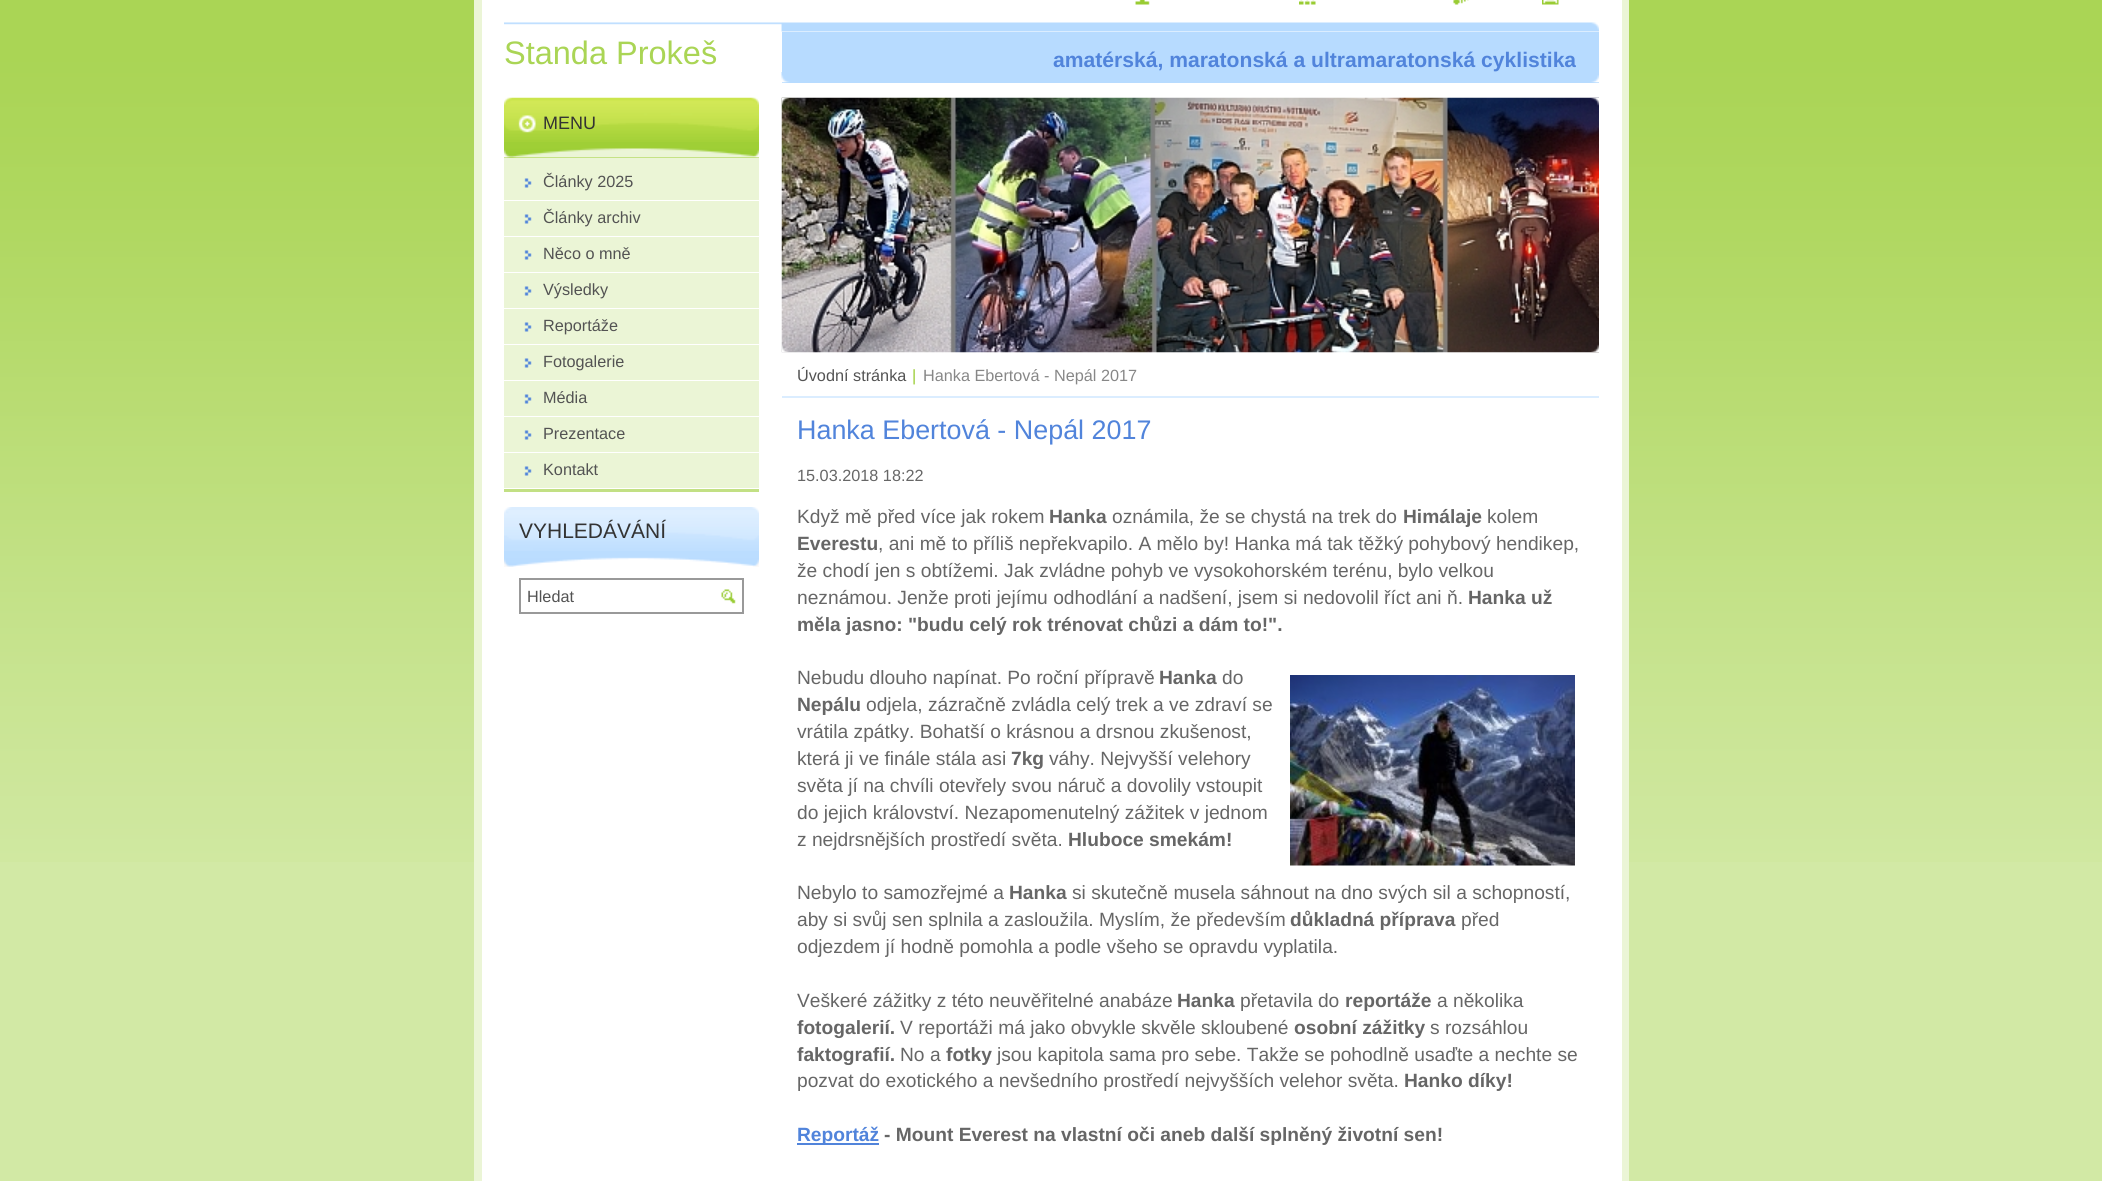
#include <cairo/cairo.h>
#include <math.h>
#include <stddef.h>

typedef struct { double x, y; const char *s; } line_t;
typedef struct { double x, y, w, h; unsigned color; } box_t;
static cairo_t *cr;

static void rgb(unsigned color)
{
	cairo_set_source_rgb(cr, (color >> 16) / 255.0, (color >> 8 & 255) / 255.0, (color & 255) / 255.0);
}

static void image(const char *path, double x, double y, double w, double h)
{
	cairo_surface_t *image = cairo_image_surface_create_from_png(path);
	cairo_save(cr);
	cairo_set_source_surface(cr, image, x, y);
	cairo_rectangle(cr, x, y, w, h);
	cairo_fill(cr);
	cairo_restore(cr);
	cairo_surface_destroy(image);
}

int main(void) {
	cairo_surface_t *surface = cairo_image_surface_create(CAIRO_FORMAT_RGB24, 2102, 1181);
	cr = cairo_create(surface);
	cairo_font_options_t *options = cairo_font_options_create();
	cairo_font_options_set_hint_metrics(options, CAIRO_HINT_METRICS_OFF);
	cairo_font_options_set_hint_style(options, CAIRO_HINT_STYLE_NONE);
	cairo_set_font_options(cr, options);
	cairo_set_miter_limit(cr, 4);
	rgb(0xd2e9a5);
	cairo_paint(cr);
	image("img/1.png", 0, 0, 2102, 862);
	{
		static const box_t items[] = {
			{482, 0, 1140, 1181, 0xffffff},
			{1622, 0, 7, 1181, 0xebf5d6},
			{474, 0, 8, 1181, 0xebf5d6},
		};
		for (size_t i = 0; i < sizeof items / sizeof *items; i++) {
			rgb(items[i].color);
			cairo_rectangle(cr, items[i].x, items[i].y, items[i].w, items[i].h);
			cairo_fill(cr);
		}
	}
	image("img/2.png", 1135, 0, 15, 5);
	image("img/3.png", 1299, 0, 17, 5);
	image("img/4.png", 1453, 0, 16, 5);
	image("img/5.png", 1542, 0, 17, 5);
	image("img/6.png", 504, 22, 1095, 10);
	rgb(0xb7dbff);
	cairo_rectangle(cr, 782, 32, 817, 51);
	cairo_fill(cr);
	image("img/7.png", 781, 72, 818, 11);
	{
		static const box_t items[] = {
			{504, 489, 255, 3, 0xc2e084},
			{504, 158, 255, 42, 0xebf5d6},
			{504, 142, 255, 16, 0x9fcf36},
		};
		for (size_t i = 0; i < sizeof items / sizeof *items; i++) {
			rgb(items[i].color);
			cairo_rectangle(cr, items[i].x, items[i].y, items[i].w, items[i].h);
			cairo_fill(cr);
		}
	}
	image("img/8.png", 504, 97, 255, 45);
	image("img/9.png", 504, 148, 255, 10);
	image("img/10.png", 524, 178, 8, 10);
	rgb(0xebf5d6);
	cairo_rectangle(cr, 504, 201, 255, 35);
	cairo_fill(cr);
	image("img/10.png", 524, 214, 8, 10);
	cairo_rectangle(cr, 504, 237, 255, 35);
	cairo_fill(cr);
	image("img/10.png", 524, 250, 8, 10);
	cairo_rectangle(cr, 504, 273, 255, 35);
	cairo_fill(cr);
	image("img/10.png", 524, 286, 8, 10);
	cairo_rectangle(cr, 504, 309, 255, 35);
	cairo_fill(cr);
	image("img/10.png", 524, 322, 8, 10);
	cairo_rectangle(cr, 504, 345, 255, 35);
	cairo_fill(cr);
	image("img/10.png", 524, 358, 8, 10);
	cairo_rectangle(cr, 504, 381, 255, 35);
	cairo_fill(cr);
	image("img/10.png", 524, 394, 8, 10);
	cairo_rectangle(cr, 504, 417, 255, 35);
	cairo_fill(cr);
	image("img/10.png", 524, 430, 8, 10);
	cairo_rectangle(cr, 504, 453, 255, 35);
	cairo_fill(cr);
	image("img/10.png", 524, 466, 8, 10);
	rgb(0xbbddff);
	cairo_rectangle(cr, 504, 551, 255, 8);
	cairo_fill(cr);
	image("img/11.png", 504, 507, 255, 44);
	image("img/12.png", 504, 557, 255, 10);
	cairo_rectangle(cr, 520, 579, 223, 34);
	rgb(0x999999);
	cairo_stroke(cr);
	image("img/13.png", 721, 589, 15, 15);
	image("img/14.png", 781, 97, 818, 256);
	image("img/15.png", 781, 97, 818, 256);
	rgb(0xdbedff);
	cairo_rectangle(cr, 782, 396, 817, 2);
	cairo_fill(cr);
	image("img/16.png", 1290, 675, 285, 191);
	rgb(0x5184db);
	cairo_rectangle(cr, 797, 1143, 82, 2);
	cairo_fill(cr);
	cairo_select_font_face(cr, "Liberation Sans", CAIRO_FONT_SLANT_NORMAL, CAIRO_FONT_WEIGHT_NORMAL);
	cairo_set_font_size(cr, 32.5);
	rgb(0xaad555);
	cairo_move_to(cr, 504, 64);
	cairo_show_text(cr, "Standa Prokeš");
	cairo_select_font_face(cr, "Liberation Sans", CAIRO_FONT_SLANT_NORMAL, CAIRO_FONT_WEIGHT_BOLD);
	cairo_set_font_size(cr, 21.1);
	rgb(0x5184db);
	cairo_move_to(cr, 1053, 67);
	cairo_show_text(cr, "amatérská, maratonská a ultramaratonská cyklistika");
	cairo_select_font_face(cr, "Liberation Sans", CAIRO_FONT_SLANT_NORMAL, CAIRO_FONT_WEIGHT_NORMAL);
	cairo_set_font_size(cr, 18);
	rgb(0x333333);
	cairo_move_to(cr, 543, 129);
	cairo_show_text(cr, "MENU");
	cairo_set_font_size(cr, 16.25);
	rgb(0x535353);
	{
		static const line_t items[] = {
			{543, 187, "Články 2025"},
			{543, 223, "Články archiv"},
			{543, 259, "Něco o mně"},
			{543, 295, "Výsledky"},
			{543, 331, "Reportáže"},
			{543, 367, "Fotogalerie"},
			{543, 403, "Média"},
			{543, 439, "Prezentace"},
			{543, 475, "Kontakt"},
		};
		for (size_t i = 0; i < sizeof items / sizeof *items; i++) {
			cairo_move_to(cr, items[i].x, items[i].y);
			cairo_show_text(cr, items[i].s);
		}
	}
	cairo_set_font_size(cr, 21);
	rgb(0x333333);
	cairo_move_to(cr, 519, 538);
	cairo_show_text(cr, "VYHLEDÁVÁNÍ");
	cairo_set_font_size(cr, 16.25);
	rgb(0x535353);
	cairo_move_to(cr, 527, 602);
	cairo_show_text(cr, "Hledat");
	cairo_move_to(cr, 797, 381);
	cairo_show_text(cr, "Úvodní stránka");
	rgb(0x99cc33);
	cairo_move_to(cr, 912, 381);
	cairo_show_text(cr, "|");
	rgb(0x878787);
	cairo_move_to(cr, 923, 381);
	cairo_show_text(cr, "Hanka Ebertová - Nepál 2017");
	cairo_set_font_size(cr, 26.9);
	rgb(0x5184db);
	cairo_move_to(cr, 797, 439);
	cairo_show_text(cr, "Hanka Ebertová - Nepál 2017");
	cairo_set_font_size(cr, 16.25);
	rgb(0x666666);
	cairo_move_to(cr, 797, 481);
	cairo_show_text(cr, "15.03.2018 18:22");
	cairo_set_font_size(cr, 19.2);
	cairo_move_to(cr, 797, 523);
	cairo_show_text(cr, "Když mě před více jak rokem");
	cairo_select_font_face(cr, "Liberation Sans", CAIRO_FONT_SLANT_NORMAL, CAIRO_FONT_WEIGHT_BOLD);
	cairo_move_to(cr, 1049, 523);
	cairo_show_text(cr, "Hanka");
	cairo_select_font_face(cr, "Liberation Sans", CAIRO_FONT_SLANT_NORMAL, CAIRO_FONT_WEIGHT_NORMAL);
	cairo_move_to(cr, 1112, 523);
	cairo_show_text(cr, "oznámila, že se chystá na trek do");
	cairo_select_font_face(cr, "Liberation Sans", CAIRO_FONT_SLANT_NORMAL, CAIRO_FONT_WEIGHT_BOLD);
	cairo_move_to(cr, 1403, 523);
	cairo_show_text(cr, "Himálaje");
	cairo_select_font_face(cr, "Liberation Sans", CAIRO_FONT_SLANT_NORMAL, CAIRO_FONT_WEIGHT_NORMAL);
	cairo_move_to(cr, 1487, 523);
	cairo_show_text(cr, "kolem");
	cairo_select_font_face(cr, "Liberation Sans", CAIRO_FONT_SLANT_NORMAL, CAIRO_FONT_WEIGHT_BOLD);
	cairo_move_to(cr, 797, 550);
	cairo_show_text(cr, "Everestu");
	cairo_select_font_face(cr, "Liberation Sans", CAIRO_FONT_SLANT_NORMAL, CAIRO_FONT_WEIGHT_NORMAL);
	{
		static const line_t items[] = {
			{878, 550, ", ani mě to příliš nepřekvapilo. A mělo by! Hanka má tak těžký pohybový hendikep,"},
			{797, 577, "že chodí jen s obtížemi. Jak zvládne pohyb ve vysokohorském terénu, bylo velkou"},
			{797, 604, "neznámou. Jenže proti jejímu odhodlání a nadšení, jsem si nedovolil říct ani ň."},
		};
		for (size_t i = 0; i < sizeof items / sizeof *items; i++) {
			cairo_move_to(cr, items[i].x, items[i].y);
			cairo_show_text(cr, items[i].s);
		}
	}
	cairo_select_font_face(cr, "Liberation Sans", CAIRO_FONT_SLANT_NORMAL, CAIRO_FONT_WEIGHT_BOLD);
	cairo_move_to(cr, 1468, 604);
	cairo_show_text(cr, "Hanka už");
	cairo_move_to(cr, 797, 631);
	cairo_show_text(cr, "měla jasno: \"budu celý rok trénovat chůzi a dám to!\".");
	cairo_select_font_face(cr, "Liberation Sans", CAIRO_FONT_SLANT_NORMAL, CAIRO_FONT_WEIGHT_NORMAL);
	cairo_move_to(cr, 797, 684);
	cairo_show_text(cr, "Nebudu dlouho napínat. Po roční přípravě");
	cairo_select_font_face(cr, "Liberation Sans", CAIRO_FONT_SLANT_NORMAL, CAIRO_FONT_WEIGHT_BOLD);
	cairo_move_to(cr, 1159, 684);
	cairo_show_text(cr, "Hanka");
	cairo_select_font_face(cr, "Liberation Sans", CAIRO_FONT_SLANT_NORMAL, CAIRO_FONT_WEIGHT_NORMAL);
	cairo_move_to(cr, 1222, 684);
	cairo_show_text(cr, "do");
	cairo_select_font_face(cr, "Liberation Sans", CAIRO_FONT_SLANT_NORMAL, CAIRO_FONT_WEIGHT_BOLD);
	cairo_move_to(cr, 797, 711);
	cairo_show_text(cr, "Nepálu");
	cairo_select_font_face(cr, "Liberation Sans", CAIRO_FONT_SLANT_NORMAL, CAIRO_FONT_WEIGHT_NORMAL);
	{
		static const line_t items[] = {
			{866, 711, "odjela, zázračně zvládla celý trek a ve zdraví se"},
			{797, 738, "vrátila zpátky. Bohatší o krásnou a drsnou zkušenost,"},
			{797, 765, "která ji ve finále stála asi"},
		};
		for (size_t i = 0; i < sizeof items / sizeof *items; i++) {
			cairo_move_to(cr, items[i].x, items[i].y);
			cairo_show_text(cr, items[i].s);
		}
	}
	cairo_select_font_face(cr, "Liberation Sans", CAIRO_FONT_SLANT_NORMAL, CAIRO_FONT_WEIGHT_BOLD);
	cairo_move_to(cr, 1011, 765);
	cairo_show_text(cr, "7kg");
	cairo_select_font_face(cr, "Liberation Sans", CAIRO_FONT_SLANT_NORMAL, CAIRO_FONT_WEIGHT_NORMAL);
	{
		static const line_t items[] = {
			{1049, 765, "váhy. Nejvyšší velehory"},
			{797, 792, "světa jí na chvíli otevřely svou náruč a dovolily vstoupit"},
			{797, 819, "do jejich království. Nezapomenutelný zážitek v jednom"},
			{797, 846, "z nejdrsnějších prostředí světa."},
		};
		for (size_t i = 0; i < sizeof items / sizeof *items; i++) {
			cairo_move_to(cr, items[i].x, items[i].y);
			cairo_show_text(cr, items[i].s);
		}
	}
	cairo_select_font_face(cr, "Liberation Sans", CAIRO_FONT_SLANT_NORMAL, CAIRO_FONT_WEIGHT_BOLD);
	cairo_move_to(cr, 1068, 846);
	cairo_show_text(cr, "Hluboce smekám!");
	cairo_select_font_face(cr, "Liberation Sans", CAIRO_FONT_SLANT_NORMAL, CAIRO_FONT_WEIGHT_NORMAL);
	cairo_move_to(cr, 797, 899);
	cairo_show_text(cr, "Nebylo to samozřejmé a");
	cairo_select_font_face(cr, "Liberation Sans", CAIRO_FONT_SLANT_NORMAL, CAIRO_FONT_WEIGHT_BOLD);
	cairo_move_to(cr, 1009, 899);
	cairo_show_text(cr, "Hanka");
	cairo_select_font_face(cr, "Liberation Sans", CAIRO_FONT_SLANT_NORMAL, CAIRO_FONT_WEIGHT_NORMAL);
	cairo_move_to(cr, 1072, 899);
	cairo_show_text(cr, "si skutečně musela sáhnout na dno svých sil a schopností,");
	cairo_move_to(cr, 797, 926);
	cairo_show_text(cr, "aby si svůj sen splnila a zasloužila. Myslím, že především");
	cairo_select_font_face(cr, "Liberation Sans", CAIRO_FONT_SLANT_NORMAL, CAIRO_FONT_WEIGHT_BOLD);
	cairo_move_to(cr, 1290, 926);
	cairo_show_text(cr, "důkladná příprava");
	cairo_select_font_face(cr, "Liberation Sans", CAIRO_FONT_SLANT_NORMAL, CAIRO_FONT_WEIGHT_NORMAL);
	{
		static const line_t items[] = {
			{1461, 926, "před"},
			{797, 953, "odjezdem jí hodně pomohla a podle všeho se opravdu vyplatila."},
			{797, 1007, "Veškeré zážitky z této neuvěřitelné anabáze"},
		};
		for (size_t i = 0; i < sizeof items / sizeof *items; i++) {
			cairo_move_to(cr, items[i].x, items[i].y);
			cairo_show_text(cr, items[i].s);
		}
	}
	cairo_select_font_face(cr, "Liberation Sans", CAIRO_FONT_SLANT_NORMAL, CAIRO_FONT_WEIGHT_BOLD);
	cairo_move_to(cr, 1177, 1007);
	cairo_show_text(cr, "Hanka");
	cairo_select_font_face(cr, "Liberation Sans", CAIRO_FONT_SLANT_NORMAL, CAIRO_FONT_WEIGHT_NORMAL);
	cairo_move_to(cr, 1240, 1007);
	cairo_show_text(cr, "přetavila do");
	cairo_select_font_face(cr, "Liberation Sans", CAIRO_FONT_SLANT_NORMAL, CAIRO_FONT_WEIGHT_BOLD);
	cairo_move_to(cr, 1345, 1007);
	cairo_show_text(cr, "reportáže");
	cairo_select_font_face(cr, "Liberation Sans", CAIRO_FONT_SLANT_NORMAL, CAIRO_FONT_WEIGHT_NORMAL);
	cairo_move_to(cr, 1437, 1007);
	cairo_show_text(cr, "a několika");
	cairo_select_font_face(cr, "Liberation Sans", CAIRO_FONT_SLANT_NORMAL, CAIRO_FONT_WEIGHT_BOLD);
	cairo_move_to(cr, 797, 1034);
	cairo_show_text(cr, "fotogalerií.");
	cairo_select_font_face(cr, "Liberation Sans", CAIRO_FONT_SLANT_NORMAL, CAIRO_FONT_WEIGHT_NORMAL);
	cairo_move_to(cr, 900, 1034);
	cairo_show_text(cr, "V reportáži má jako obvykle skvěle skloubené");
	cairo_select_font_face(cr, "Liberation Sans", CAIRO_FONT_SLANT_NORMAL, CAIRO_FONT_WEIGHT_BOLD);
	cairo_move_to(cr, 1294, 1034);
	cairo_show_text(cr, "osobní zážitky");
	cairo_select_font_face(cr, "Liberation Sans", CAIRO_FONT_SLANT_NORMAL, CAIRO_FONT_WEIGHT_NORMAL);
	cairo_move_to(cr, 1430, 1034);
	cairo_show_text(cr, "s rozsáhlou");
	cairo_select_font_face(cr, "Liberation Sans", CAIRO_FONT_SLANT_NORMAL, CAIRO_FONT_WEIGHT_BOLD);
	cairo_move_to(cr, 797, 1061);
	cairo_show_text(cr, "faktografií.");
	cairo_select_font_face(cr, "Liberation Sans", CAIRO_FONT_SLANT_NORMAL, CAIRO_FONT_WEIGHT_NORMAL);
	cairo_move_to(cr, 900, 1061);
	cairo_show_text(cr, "No a");
	cairo_select_font_face(cr, "Liberation Sans", CAIRO_FONT_SLANT_NORMAL, CAIRO_FONT_WEIGHT_BOLD);
	cairo_move_to(cr, 946, 1061);
	cairo_show_text(cr, "fotky");
	cairo_select_font_face(cr, "Liberation Sans", CAIRO_FONT_SLANT_NORMAL, CAIRO_FONT_WEIGHT_NORMAL);
	cairo_move_to(cr, 997, 1061);
	cairo_show_text(cr, "jsou kapitola sama pro sebe. Takže se pohodlně usaďte a nechte se");
	cairo_move_to(cr, 797, 1087);
	cairo_show_text(cr, "pozvat do exotického a nevšedního prostředí nejvyšších velehor světa.");
	cairo_select_font_face(cr, "Liberation Sans", CAIRO_FONT_SLANT_NORMAL, CAIRO_FONT_WEIGHT_BOLD);
	cairo_move_to(cr, 1404, 1087);
	cairo_show_text(cr, "Hanko díky!");
	rgb(0x5184db);
	cairo_move_to(cr, 797, 1141);
	cairo_show_text(cr, "Reportáž");
	rgb(0x666666);
	cairo_move_to(cr, 884, 1141);
	cairo_show_text(cr, "- Mount Everest na vlastní oči aneb další splněný životní sen!");
	cairo_surface_write_to_png(surface, "page.png");
	cairo_font_options_destroy(options);
	cairo_destroy(cr);
	cairo_surface_destroy(surface);
	return 0;
}
